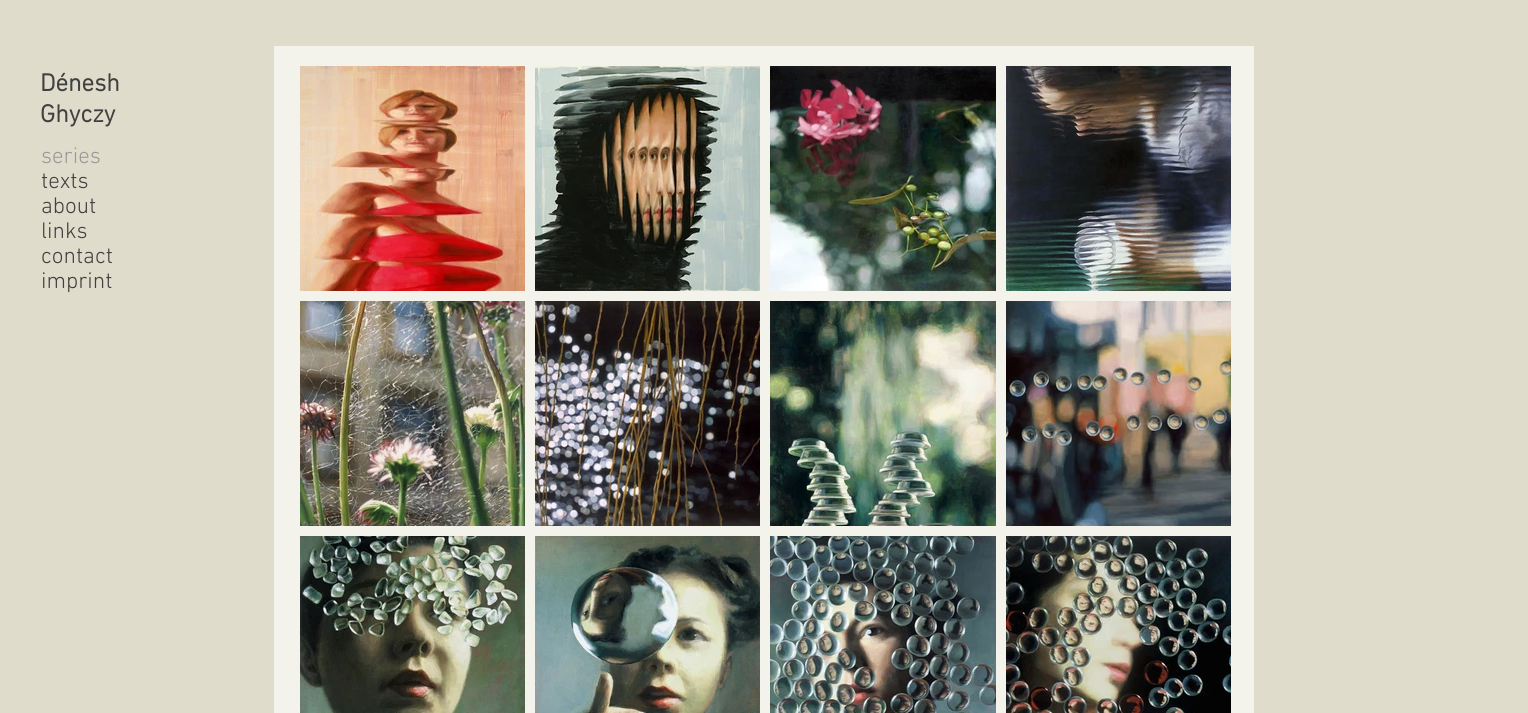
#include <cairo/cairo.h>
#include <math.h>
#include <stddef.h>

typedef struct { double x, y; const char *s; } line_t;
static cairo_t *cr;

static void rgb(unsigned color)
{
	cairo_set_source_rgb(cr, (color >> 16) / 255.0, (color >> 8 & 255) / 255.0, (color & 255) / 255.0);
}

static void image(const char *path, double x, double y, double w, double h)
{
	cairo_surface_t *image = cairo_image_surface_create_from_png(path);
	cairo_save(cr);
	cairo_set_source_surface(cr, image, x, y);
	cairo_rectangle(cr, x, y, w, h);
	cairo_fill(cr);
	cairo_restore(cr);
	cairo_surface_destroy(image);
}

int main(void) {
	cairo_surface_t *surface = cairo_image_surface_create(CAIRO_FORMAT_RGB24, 1528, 713);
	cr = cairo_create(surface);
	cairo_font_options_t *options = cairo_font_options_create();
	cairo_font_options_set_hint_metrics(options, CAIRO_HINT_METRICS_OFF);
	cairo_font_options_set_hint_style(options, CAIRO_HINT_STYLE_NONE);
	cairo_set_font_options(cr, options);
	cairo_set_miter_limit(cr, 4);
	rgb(0xe0dccc);
	cairo_paint(cr);
	rgb(0xf3f2eb);
	cairo_rectangle(cr, 274, 46, 980, 667);
	cairo_fill(cr);
	image("img/1.png", 300, 66, 225, 225);
	image("img/2.png", 535, 66, 225, 225);
	image("img/3.png", 770, 66, 226, 225);
	image("img/4.png", 1006, 66, 225, 225);
	image("img/5.png", 300, 301, 225, 225);
	image("img/6.png", 535, 301, 225, 225);
	image("img/7.png", 770, 301, 226, 225);
	image("img/8.png", 1006, 301, 225, 225);
	image("img/9.png", 300, 536, 225, 177);
	image("img/10.png", 535, 536, 225, 177);
	image("img/11.png", 770, 536, 226, 177);
	image("img/12.png", 1006, 536, 225, 177);
	cairo_select_font_face(cr, "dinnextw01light", CAIRO_FONT_SLANT_NORMAL, CAIRO_FONT_WEIGHT_BOLD);
	cairo_set_font_size(cr, 25);
	rgb(0x414141);
	cairo_move_to(cr, 40, 91);
	cairo_show_text(cr, "Dénesh");
	cairo_move_to(cr, 40, 122);
	cairo_show_text(cr, "Ghyczy");
	cairo_select_font_face(cr, "dinnextw01light Light", CAIRO_FONT_SLANT_NORMAL, CAIRO_FONT_WEIGHT_NORMAL);
	cairo_set_font_size(cr, 23);
	rgb(0x999999);
	cairo_move_to(cr, 41, 163);
	cairo_show_text(cr, "series");
	rgb(0x414141);
	{
		static const line_t items[] = {
			{41, 188, "texts"},
			{41, 213, "about"},
			{41, 238, "links"},
			{41, 263, "contact"},
			{41, 288, "imprint"},
		};
		for (size_t i = 0; i < sizeof items / sizeof *items; i++) {
			cairo_move_to(cr, items[i].x, items[i].y);
			cairo_show_text(cr, items[i].s);
		}
	}
	cairo_surface_write_to_png(surface, "page.png");
	cairo_font_options_destroy(options);
	cairo_destroy(cr);
	cairo_surface_destroy(surface);
	return 0;
}
